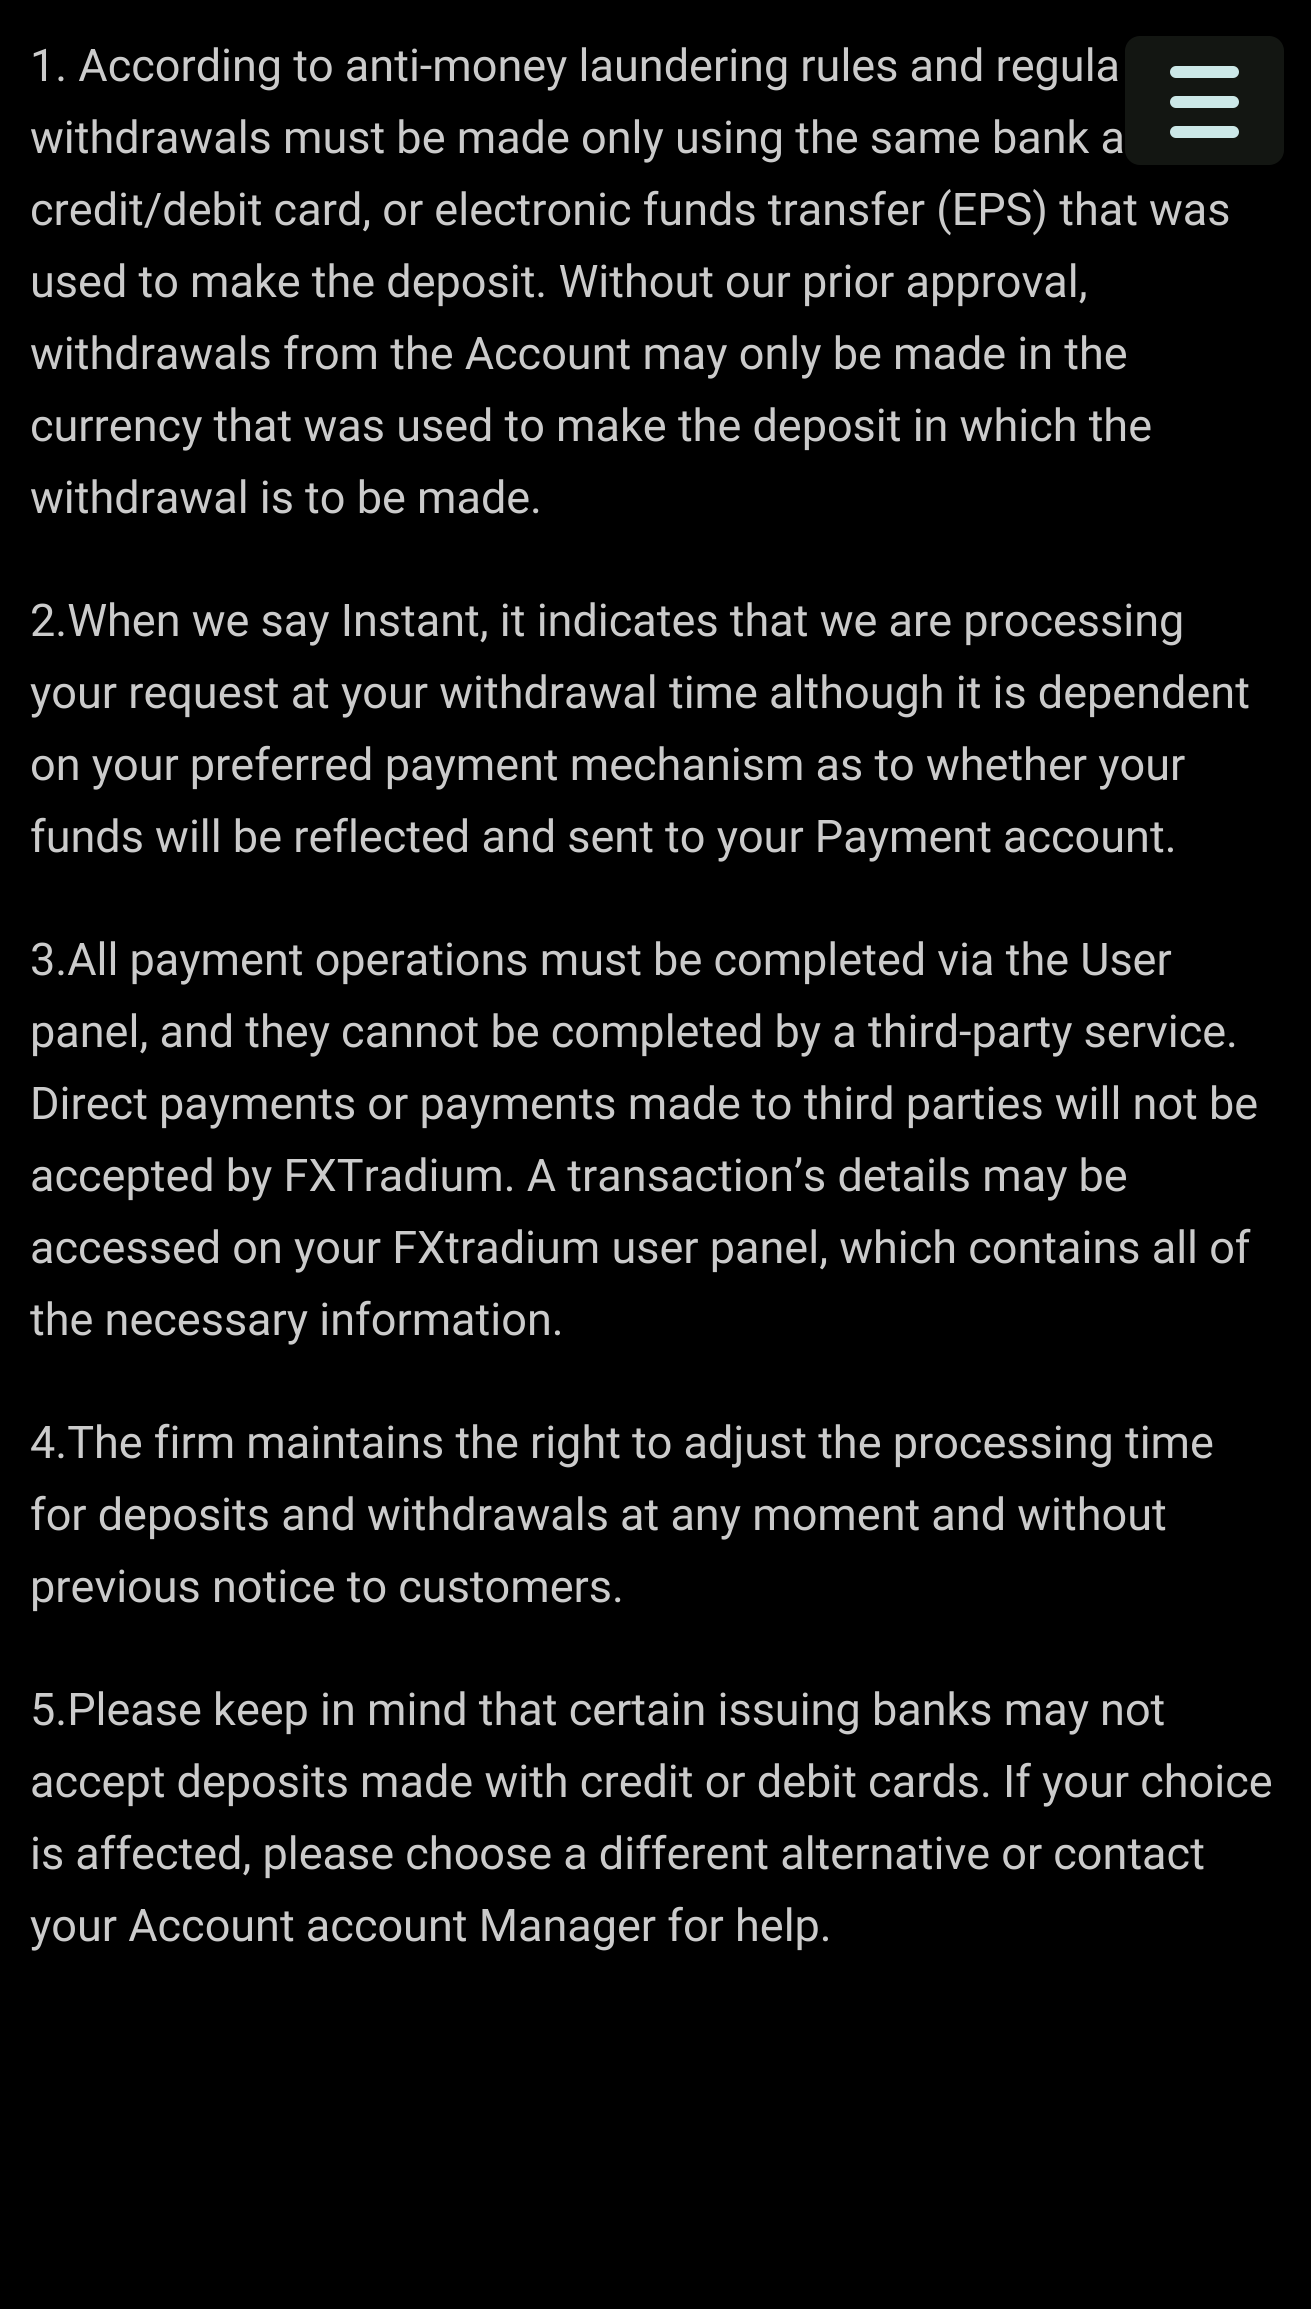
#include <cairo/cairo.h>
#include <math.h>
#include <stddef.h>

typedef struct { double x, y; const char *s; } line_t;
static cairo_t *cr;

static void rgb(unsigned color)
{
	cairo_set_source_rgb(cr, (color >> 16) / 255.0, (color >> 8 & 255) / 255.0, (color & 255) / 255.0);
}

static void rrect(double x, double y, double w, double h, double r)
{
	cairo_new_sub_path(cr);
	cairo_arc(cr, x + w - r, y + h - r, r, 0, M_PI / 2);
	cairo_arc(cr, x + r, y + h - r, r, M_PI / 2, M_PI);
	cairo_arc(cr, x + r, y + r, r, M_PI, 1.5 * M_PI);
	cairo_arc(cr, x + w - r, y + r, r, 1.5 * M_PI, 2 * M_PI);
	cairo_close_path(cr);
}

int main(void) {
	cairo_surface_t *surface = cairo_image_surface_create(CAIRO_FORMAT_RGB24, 1311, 2309);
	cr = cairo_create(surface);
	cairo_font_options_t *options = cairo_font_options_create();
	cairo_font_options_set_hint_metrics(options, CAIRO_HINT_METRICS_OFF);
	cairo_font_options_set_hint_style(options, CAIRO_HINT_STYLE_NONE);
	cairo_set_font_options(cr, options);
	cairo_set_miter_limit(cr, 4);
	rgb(0x000000);
	cairo_paint(cr);
	rgb(0x131612);
	rrect(1125, 36, 159, 129, 15);
	cairo_fill(cr);
	rgb(0xcce8e7);
	rrect(1170, 96, 69, 12, 6);
	cairo_fill(cr);
	rrect(1170, 66, 69, 12, 6);
	cairo_fill(cr);
	rrect(1170, 126, 69, 12, 6);
	cairo_fill(cr);
	cairo_select_font_face(cr, "Roboto", CAIRO_FONT_SLANT_NORMAL, CAIRO_FONT_WEIGHT_NORMAL);
	cairo_set_font_size(cr, 45);
	rgb(0xcbcbcb);
	{
		static const line_t items[] = {
			{30, 81, "1. According to anti-money laundering rules and regula"},
			{30, 153, "withdrawals must be made only using the same bank a"},
			{30, 225, "credit/debit card, or electronic funds transfer (EPS) that was"},
			{30, 297, "used to make the deposit. Without our prior approval,"},
			{30, 369, "withdrawals from the Account may only be made in the"},
			{30, 441, "currency that was used to make the deposit in which the"},
			{30, 513, "withdrawal is to be made."},
			{30, 636, "2.When we say Instant, it indicates that we are processing"},
			{30, 708, "your request at your withdrawal time although it is dependent"},
			{30, 780, "on your preferred payment mechanism as to whether your"},
			{30, 852, "funds will be reflected and sent to your Payment account."},
			{30, 975, "3.All payment operations must be completed via the User"},
			{30, 1047, "panel, and they cannot be completed by a third-party service."},
			{30, 1119, "Direct payments or payments made to third parties will not be"},
			{30, 1191, "accepted by FXTradium. A transaction’s details may be"},
			{30, 1263, "accessed on your FXtradium user panel, which contains all of"},
			{30, 1335, "the necessary information."},
			{30, 1458, "4.The firm maintains the right to adjust the processing time"},
			{30, 1530, "for deposits and withdrawals at any moment and without"},
			{30, 1602, "previous notice to customers."},
			{30, 1725, "5.Please keep in mind that certain issuing banks may not"},
			{30, 1797, "accept deposits made with credit or debit cards. If your choice"},
			{30, 1869, "is affected, please choose a different alternative or contact"},
			{30, 1941, "your Account account Manager for help."},
		};
		for (size_t i = 0; i < sizeof items / sizeof *items; i++) {
			cairo_move_to(cr, items[i].x, items[i].y);
			cairo_show_text(cr, items[i].s);
		}
	}
	cairo_surface_write_to_png(surface, "page.png");
	cairo_font_options_destroy(options);
	cairo_destroy(cr);
	cairo_surface_destroy(surface);
	return 0;
}
